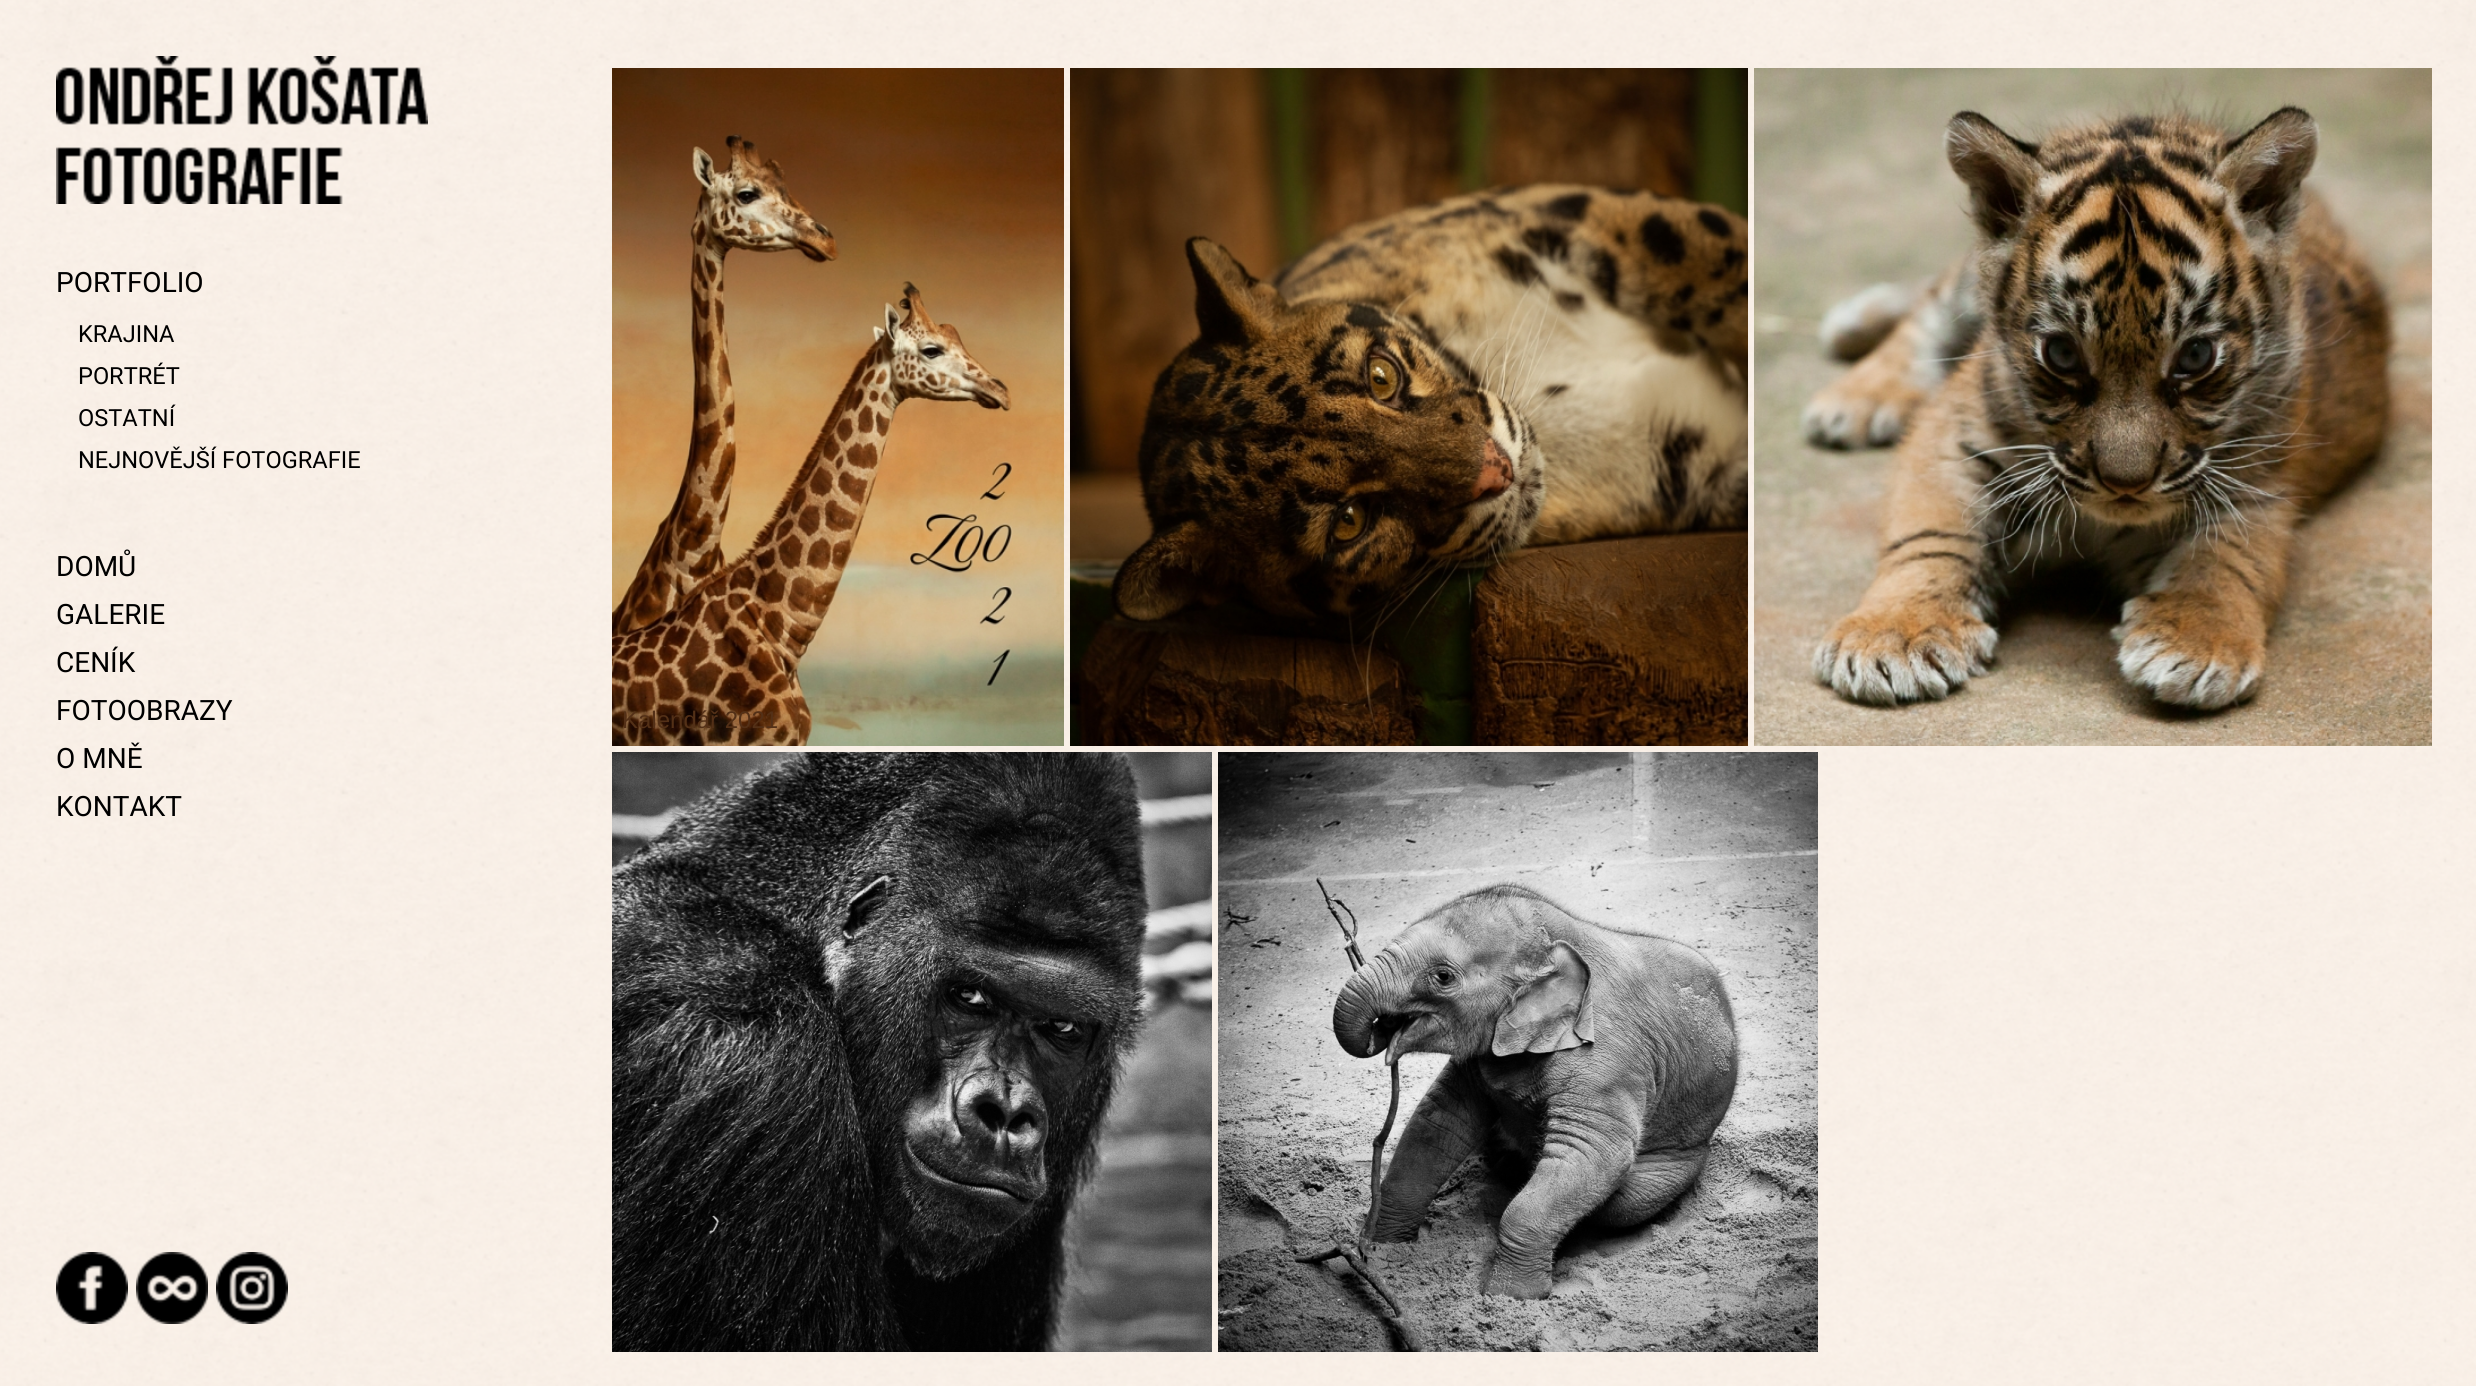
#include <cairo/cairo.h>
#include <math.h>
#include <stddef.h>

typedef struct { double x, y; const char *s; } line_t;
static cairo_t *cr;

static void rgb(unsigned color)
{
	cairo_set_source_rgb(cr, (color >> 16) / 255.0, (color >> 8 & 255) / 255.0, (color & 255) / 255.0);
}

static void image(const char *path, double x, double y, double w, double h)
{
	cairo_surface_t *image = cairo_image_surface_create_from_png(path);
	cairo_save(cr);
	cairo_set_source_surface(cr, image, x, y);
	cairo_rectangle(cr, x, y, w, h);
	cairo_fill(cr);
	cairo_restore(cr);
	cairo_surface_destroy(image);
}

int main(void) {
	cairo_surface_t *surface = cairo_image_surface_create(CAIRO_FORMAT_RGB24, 2476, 1386);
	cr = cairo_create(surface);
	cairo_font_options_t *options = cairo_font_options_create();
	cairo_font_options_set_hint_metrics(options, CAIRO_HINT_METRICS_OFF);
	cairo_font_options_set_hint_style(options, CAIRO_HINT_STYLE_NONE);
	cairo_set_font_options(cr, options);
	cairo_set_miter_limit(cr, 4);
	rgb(0xffffff);
	cairo_paint(cr);
	image("img/1.png", 0, 0, 2476, 1386);
	image("img/2.png", 56, 56, 372, 148);
	image("img/3.png", 612, 68, 452, 678);
	image("img/4.png", 1070, 68, 678, 678);
	image("img/5.png", 1754, 68, 678, 678);
	image("img/6.png", 612, 752, 600, 600);
	image("img/7.png", 1218, 752, 600, 600);
	image("img/8.png", 56, 1252, 72, 72);
	image("img/9.png", 136, 1252, 72, 72);
	image("img/10.png", 216, 1252, 72, 72);
	cairo_select_font_face(cr, "Roboto", CAIRO_FONT_SLANT_NORMAL, CAIRO_FONT_WEIGHT_NORMAL);
	cairo_set_font_size(cr, 28);
	rgb(0x000000);
	cairo_move_to(cr, 56, 292);
	cairo_show_text(cr, "PORTFOLIO");
	cairo_set_font_size(cr, 23.6);
	{
		static const line_t items[] = {
			{78, 342, "KRAJINA"},
			{78, 384, "PORTRÉT"},
			{78, 426, "OSTATNÍ"},
			{78, 468, "NEJNOVĚJŠÍ FOTOGRAFIE"},
		};
		for (size_t i = 0; i < sizeof items / sizeof *items; i++) {
			cairo_move_to(cr, items[i].x, items[i].y);
			cairo_show_text(cr, items[i].s);
		}
	}
	cairo_set_font_size(cr, 28);
	{
		static const line_t items[] = {
			{56, 576, "DOMŮ"},
			{56, 624, "GALERIE"},
			{56, 672, "CENÍK"},
			{56, 720, "FOTOOBRAZY"},
			{56, 768, "O MNĚ"},
			{56, 816, "KONTAKT"},
		};
		for (size_t i = 0; i < sizeof items / sizeof *items; i++) {
			cairo_move_to(cr, items[i].x, items[i].y);
			cairo_show_text(cr, items[i].s);
		}
	}
	cairo_select_font_face(cr, "Liberation Sans", CAIRO_FONT_SLANT_NORMAL, CAIRO_FONT_WEIGHT_NORMAL);
	cairo_set_font_size(cr, 24);
	rgb(0x533017);
	cairo_move_to(cr, 622, 728);
	cairo_show_text(cr, "Kalendář 2021");
	cairo_surface_write_to_png(surface, "page.png");
	cairo_font_options_destroy(options);
	cairo_destroy(cr);
	cairo_surface_destroy(surface);
	return 0;
}
